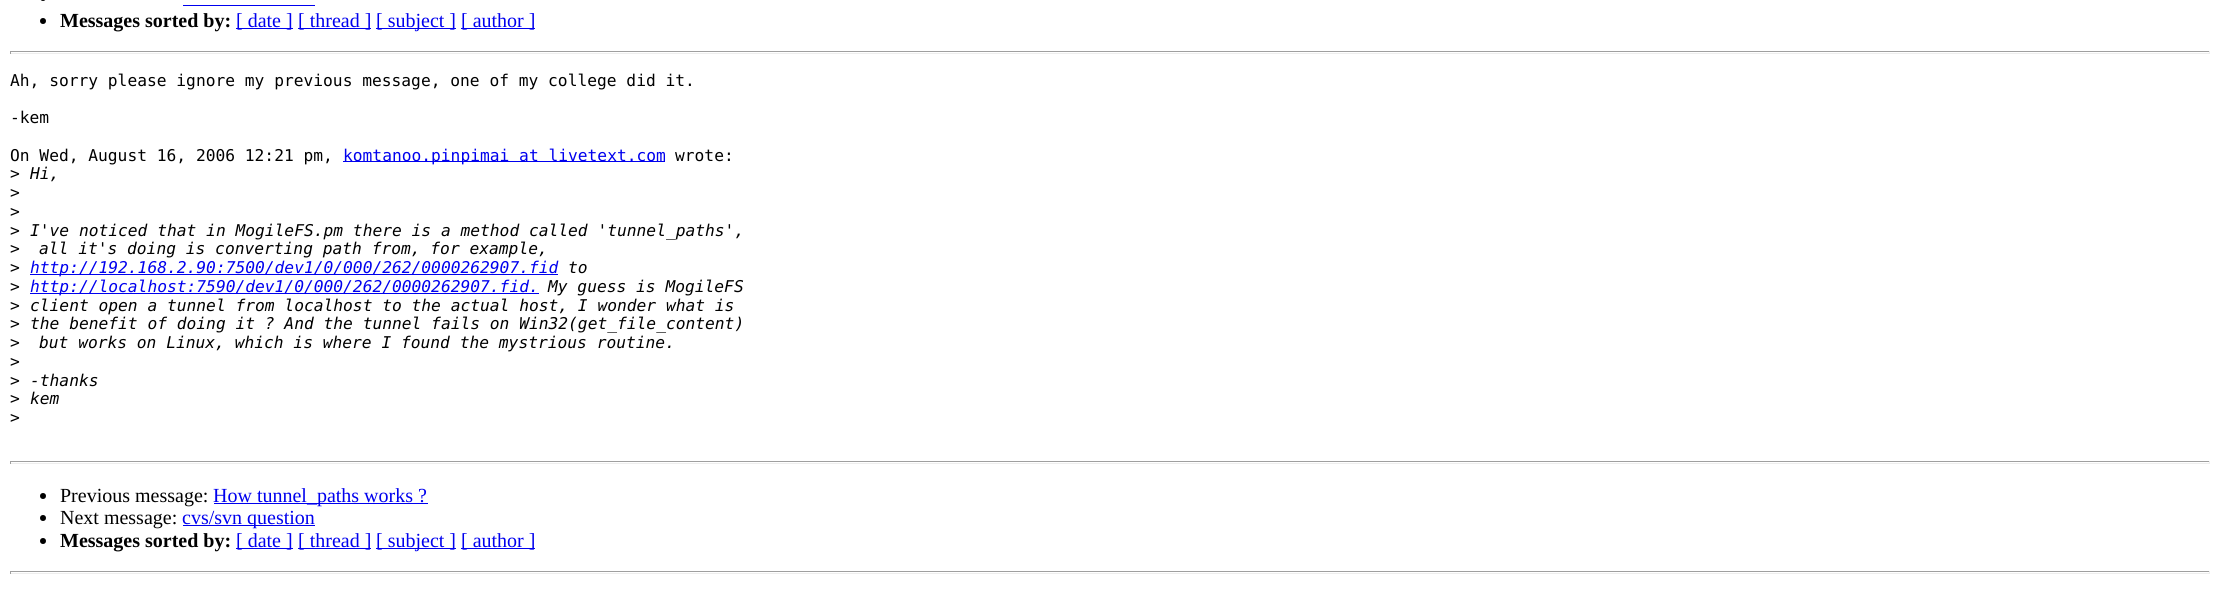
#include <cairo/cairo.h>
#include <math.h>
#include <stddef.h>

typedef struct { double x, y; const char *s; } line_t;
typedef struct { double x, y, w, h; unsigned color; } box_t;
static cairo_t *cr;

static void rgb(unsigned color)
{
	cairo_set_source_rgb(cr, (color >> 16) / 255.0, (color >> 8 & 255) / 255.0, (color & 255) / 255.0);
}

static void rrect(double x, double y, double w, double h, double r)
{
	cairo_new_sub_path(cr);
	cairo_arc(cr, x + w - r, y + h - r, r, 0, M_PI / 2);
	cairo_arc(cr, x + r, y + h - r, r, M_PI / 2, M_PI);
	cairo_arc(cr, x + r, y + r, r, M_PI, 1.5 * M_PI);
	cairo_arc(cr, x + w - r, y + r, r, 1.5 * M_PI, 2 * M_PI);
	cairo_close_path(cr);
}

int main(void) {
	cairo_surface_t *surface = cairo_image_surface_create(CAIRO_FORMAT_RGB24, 2219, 596);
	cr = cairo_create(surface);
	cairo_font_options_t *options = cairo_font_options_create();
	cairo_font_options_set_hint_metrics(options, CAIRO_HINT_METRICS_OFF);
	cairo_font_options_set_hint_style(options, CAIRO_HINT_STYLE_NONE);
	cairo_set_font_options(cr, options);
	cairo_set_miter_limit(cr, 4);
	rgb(0xffffff);
	cairo_paint(cr);
	rgb(0x000000);
	rrect(40, -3, 6, 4, 3);
	cairo_fill(cr);
	rgb(0x0000ee);
	cairo_rectangle(cr, 183, 5, 132, 1);
	cairo_fill(cr);
	rgb(0x000000);
	cairo_arc(cr, 43, 21, 3, 0, 2 * M_PI);
	cairo_fill(cr);
	{
		static const box_t items[] = {
			{236, 28, 57, 1, 0x0000ee},
			{298, 28, 73, 1, 0x0000ee},
			{376, 28, 80, 1, 0x0000ee},
			{461, 28, 74, 1, 0x0000ee},
			{10, 51, 2200, 1, 0x9f9f9f},
			{2209, 51, 1, 3, 0xeeeeee},
			{10, 53, 2200, 1, 0xeeeeee},
			{10, 51, 1, 3, 0x9f9f9f},
			{343, 161, 322, 1, 0x0000ee},
			{30, 274, 528, 1, 0x0000ee},
			{30, 293, 509, 1, 0x0000ee},
			{10, 461, 2200, 1, 0x9f9f9f},
			{2209, 461, 1, 3, 0xeeeeee},
			{10, 463, 2200, 1, 0xeeeeee},
			{10, 461, 1, 3, 0x9f9f9f},
		};
		for (size_t i = 0; i < sizeof items / sizeof *items; i++) {
			rgb(items[i].color);
			cairo_rectangle(cr, items[i].x, items[i].y, items[i].w, items[i].h);
			cairo_fill(cr);
		}
	}
	rgb(0x000000);
	cairo_arc(cr, 43, 496, 3, 0, 2 * M_PI);
	cairo_fill(cr);
	rgb(0x0000ee);
	cairo_rectangle(cr, 214, 503, 214, 1);
	cairo_fill(cr);
	rgb(0x000000);
	cairo_arc(cr, 43, 518, 3, 0, 2 * M_PI);
	cairo_fill(cr);
	rgb(0x0000ee);
	cairo_rectangle(cr, 183, 525, 132, 1);
	cairo_fill(cr);
	rgb(0x000000);
	cairo_arc(cr, 43, 541, 3, 0, 2 * M_PI);
	cairo_fill(cr);
	{
		static const box_t items[] = {
			{236, 548, 57, 1, 0x0000ee},
			{298, 548, 73, 1, 0x0000ee},
			{376, 548, 80, 1, 0x0000ee},
			{461, 548, 74, 1, 0x0000ee},
			{10, 571, 2200, 1, 0x9f9f9f},
			{2209, 571, 1, 3, 0xeeeeee},
			{10, 573, 2200, 1, 0xeeeeee},
			{10, 571, 1, 3, 0x9f9f9f},
		};
		for (size_t i = 0; i < sizeof items / sizeof *items; i++) {
			rgb(items[i].color);
			cairo_rectangle(cr, items[i].x, items[i].y, items[i].w, items[i].h);
			cairo_fill(cr);
		}
	}
	cairo_select_font_face(cr, "Liberation Serif", CAIRO_FONT_SLANT_NORMAL, CAIRO_FONT_WEIGHT_BOLD);
	cairo_set_font_size(cr, 20);
	rgb(0x000000);
	cairo_move_to(cr, 60, 27);
	cairo_show_text(cr, "Messages sorted by:");
	cairo_select_font_face(cr, "Liberation Serif", CAIRO_FONT_SLANT_NORMAL, CAIRO_FONT_WEIGHT_NORMAL);
	rgb(0x0000ee);
	{
		static const line_t items[] = {
			{236, 27, "[ date ]"},
			{298, 27, "[ thread ]"},
			{376, 27, "[ subject ]"},
			{461, 27, "[ author ]"},
		};
		for (size_t i = 0; i < sizeof items / sizeof *items; i++) {
			cairo_move_to(cr, items[i].x, items[i].y);
			cairo_show_text(cr, items[i].s);
		}
	}
	cairo_select_font_face(cr, "DejaVu Sans Mono", CAIRO_FONT_SLANT_NORMAL, CAIRO_FONT_WEIGHT_NORMAL);
	cairo_set_font_size(cr, 16.25);
	rgb(0x000000);
	{
		static const line_t items[] = {
			{10, 86, "Ah, sorry please ignore my previous message, one of my college did it."},
			{10, 123, "-kem"},
			{10, 161, "On Wed, August 16, 2006 12:21 pm,"},
		};
		for (size_t i = 0; i < sizeof items / sizeof *items; i++) {
			cairo_move_to(cr, items[i].x, items[i].y);
			cairo_show_text(cr, items[i].s);
		}
	}
	rgb(0x0000ee);
	cairo_move_to(cr, 343, 161);
	cairo_show_text(cr, "komtanoo.pinpimai at livetext.com");
	rgb(0x000000);
	cairo_move_to(cr, 675, 161);
	cairo_show_text(cr, "wrote:");
	cairo_move_to(cr, 10, 179);
	cairo_show_text(cr, ">");
	cairo_select_font_face(cr, "DejaVu Sans Mono", CAIRO_FONT_SLANT_ITALIC, CAIRO_FONT_WEIGHT_NORMAL);
	cairo_move_to(cr, 30, 179);
	cairo_show_text(cr, "Hi,");
	cairo_select_font_face(cr, "DejaVu Sans Mono", CAIRO_FONT_SLANT_NORMAL, CAIRO_FONT_WEIGHT_NORMAL);
	{
		static const line_t items[] = {
			{10, 198, ">"},
			{10, 217, ">"},
			{10, 236, ">"},
		};
		for (size_t i = 0; i < sizeof items / sizeof *items; i++) {
			cairo_move_to(cr, items[i].x, items[i].y);
			cairo_show_text(cr, items[i].s);
		}
	}
	cairo_select_font_face(cr, "DejaVu Sans Mono", CAIRO_FONT_SLANT_ITALIC, CAIRO_FONT_WEIGHT_NORMAL);
	cairo_move_to(cr, 30, 236);
	cairo_show_text(cr, "I've noticed that in MogileFS.pm there is a method called 'tunnel_paths',");
	cairo_select_font_face(cr, "DejaVu Sans Mono", CAIRO_FONT_SLANT_NORMAL, CAIRO_FONT_WEIGHT_NORMAL);
	cairo_move_to(cr, 10, 254);
	cairo_show_text(cr, ">");
	cairo_select_font_face(cr, "DejaVu Sans Mono", CAIRO_FONT_SLANT_ITALIC, CAIRO_FONT_WEIGHT_NORMAL);
	cairo_move_to(cr, 39, 254);
	cairo_show_text(cr, "all it's doing is converting path from, for example,");
	cairo_select_font_face(cr, "DejaVu Sans Mono", CAIRO_FONT_SLANT_NORMAL, CAIRO_FONT_WEIGHT_NORMAL);
	cairo_move_to(cr, 10, 273);
	cairo_show_text(cr, ">");
	cairo_select_font_face(cr, "DejaVu Sans Mono", CAIRO_FONT_SLANT_ITALIC, CAIRO_FONT_WEIGHT_NORMAL);
	rgb(0x0000ee);
	cairo_move_to(cr, 30, 273);
	cairo_show_text(cr, "http://192.168.2.90:7500/dev1/0/000/262/0000262907.fid");
	rgb(0x000000);
	cairo_move_to(cr, 568, 273);
	cairo_show_text(cr, "to");
	cairo_select_font_face(cr, "DejaVu Sans Mono", CAIRO_FONT_SLANT_NORMAL, CAIRO_FONT_WEIGHT_NORMAL);
	cairo_move_to(cr, 10, 292);
	cairo_show_text(cr, ">");
	cairo_select_font_face(cr, "DejaVu Sans Mono", CAIRO_FONT_SLANT_ITALIC, CAIRO_FONT_WEIGHT_NORMAL);
	rgb(0x0000ee);
	cairo_move_to(cr, 30, 292);
	cairo_show_text(cr, "http://localhost:7590/dev1/0/000/262/0000262907.fid.");
	rgb(0x000000);
	cairo_move_to(cr, 548, 292);
	cairo_show_text(cr, "My guess is MogileFS");
	cairo_select_font_face(cr, "DejaVu Sans Mono", CAIRO_FONT_SLANT_NORMAL, CAIRO_FONT_WEIGHT_NORMAL);
	cairo_move_to(cr, 10, 311);
	cairo_show_text(cr, ">");
	cairo_select_font_face(cr, "DejaVu Sans Mono", CAIRO_FONT_SLANT_ITALIC, CAIRO_FONT_WEIGHT_NORMAL);
	cairo_move_to(cr, 30, 311);
	cairo_show_text(cr, "client open a tunnel from localhost to the actual host, I wonder what is");
	cairo_select_font_face(cr, "DejaVu Sans Mono", CAIRO_FONT_SLANT_NORMAL, CAIRO_FONT_WEIGHT_NORMAL);
	cairo_move_to(cr, 10, 329);
	cairo_show_text(cr, ">");
	cairo_select_font_face(cr, "DejaVu Sans Mono", CAIRO_FONT_SLANT_ITALIC, CAIRO_FONT_WEIGHT_NORMAL);
	cairo_move_to(cr, 30, 329);
	cairo_show_text(cr, "the benefit of doing it ? And the tunnel fails on Win32(get_file_content)");
	cairo_select_font_face(cr, "DejaVu Sans Mono", CAIRO_FONT_SLANT_NORMAL, CAIRO_FONT_WEIGHT_NORMAL);
	cairo_move_to(cr, 10, 348);
	cairo_show_text(cr, ">");
	cairo_select_font_face(cr, "DejaVu Sans Mono", CAIRO_FONT_SLANT_ITALIC, CAIRO_FONT_WEIGHT_NORMAL);
	cairo_move_to(cr, 39, 348);
	cairo_show_text(cr, "but works on Linux, which is where I found the mystrious routine.");
	cairo_select_font_face(cr, "DejaVu Sans Mono", CAIRO_FONT_SLANT_NORMAL, CAIRO_FONT_WEIGHT_NORMAL);
	cairo_move_to(cr, 10, 367);
	cairo_show_text(cr, ">");
	cairo_move_to(cr, 10, 386);
	cairo_show_text(cr, ">");
	cairo_select_font_face(cr, "DejaVu Sans Mono", CAIRO_FONT_SLANT_ITALIC, CAIRO_FONT_WEIGHT_NORMAL);
	cairo_move_to(cr, 30, 386);
	cairo_show_text(cr, "-thanks");
	cairo_select_font_face(cr, "DejaVu Sans Mono", CAIRO_FONT_SLANT_NORMAL, CAIRO_FONT_WEIGHT_NORMAL);
	cairo_move_to(cr, 10, 404);
	cairo_show_text(cr, ">");
	cairo_select_font_face(cr, "DejaVu Sans Mono", CAIRO_FONT_SLANT_ITALIC, CAIRO_FONT_WEIGHT_NORMAL);
	cairo_move_to(cr, 30, 404);
	cairo_show_text(cr, "kem");
	cairo_select_font_face(cr, "DejaVu Sans Mono", CAIRO_FONT_SLANT_NORMAL, CAIRO_FONT_WEIGHT_NORMAL);
	cairo_move_to(cr, 10, 423);
	cairo_show_text(cr, ">");
	cairo_select_font_face(cr, "Liberation Serif", CAIRO_FONT_SLANT_NORMAL, CAIRO_FONT_WEIGHT_NORMAL);
	cairo_set_font_size(cr, 20);
	cairo_move_to(cr, 60, 502);
	cairo_show_text(cr, "Previous message:");
	rgb(0x0000ee);
	cairo_move_to(cr, 213, 502);
	cairo_show_text(cr, "How tunnel_paths works ?");
	rgb(0x000000);
	cairo_move_to(cr, 60, 524);
	cairo_show_text(cr, "Next message:");
	rgb(0x0000ee);
	cairo_move_to(cr, 182, 524);
	cairo_show_text(cr, "cvs/svn question");
	cairo_select_font_face(cr, "Liberation Serif", CAIRO_FONT_SLANT_NORMAL, CAIRO_FONT_WEIGHT_BOLD);
	rgb(0x000000);
	cairo_move_to(cr, 60, 547);
	cairo_show_text(cr, "Messages sorted by:");
	cairo_select_font_face(cr, "Liberation Serif", CAIRO_FONT_SLANT_NORMAL, CAIRO_FONT_WEIGHT_NORMAL);
	rgb(0x0000ee);
	{
		static const line_t items[] = {
			{236, 547, "[ date ]"},
			{298, 547, "[ thread ]"},
			{376, 547, "[ subject ]"},
			{461, 547, "[ author ]"},
		};
		for (size_t i = 0; i < sizeof items / sizeof *items; i++) {
			cairo_move_to(cr, items[i].x, items[i].y);
			cairo_show_text(cr, items[i].s);
		}
	}
	cairo_surface_write_to_png(surface, "page.png");
	cairo_font_options_destroy(options);
	cairo_destroy(cr);
	cairo_surface_destroy(surface);
	return 0;
}
